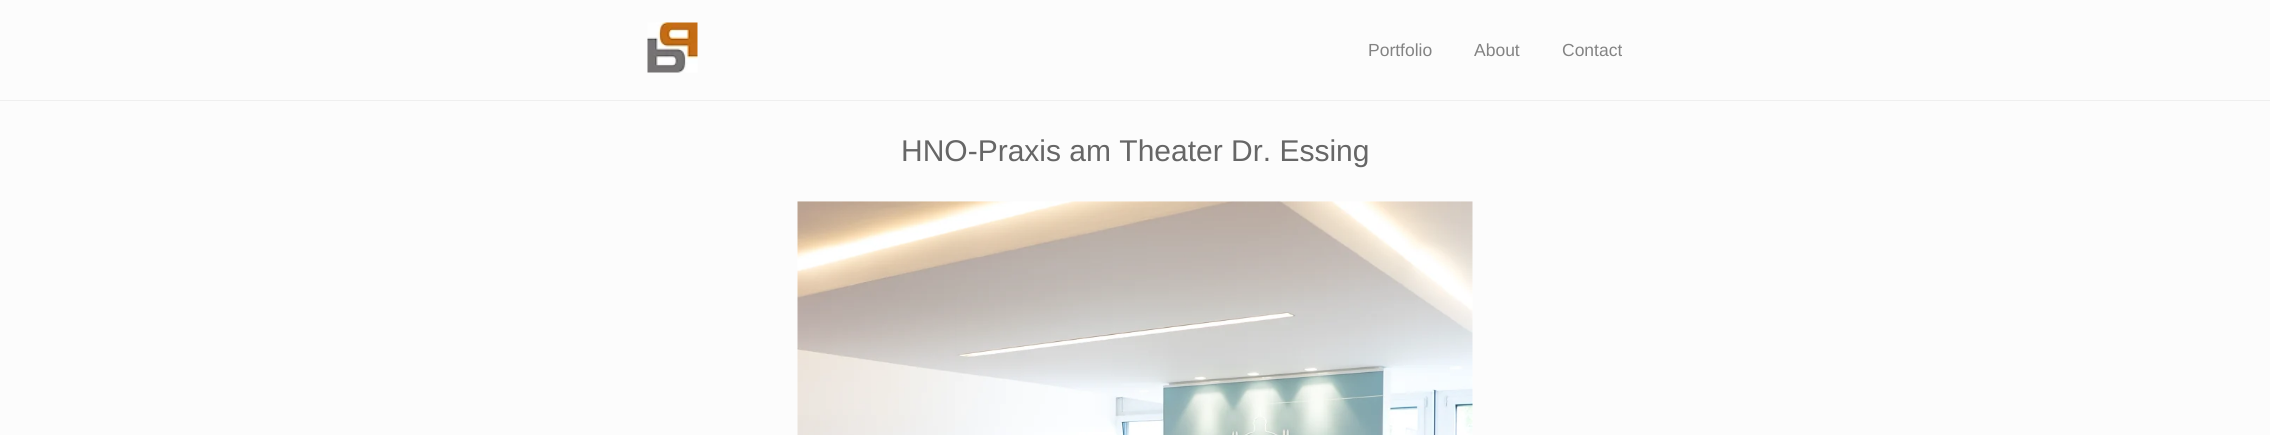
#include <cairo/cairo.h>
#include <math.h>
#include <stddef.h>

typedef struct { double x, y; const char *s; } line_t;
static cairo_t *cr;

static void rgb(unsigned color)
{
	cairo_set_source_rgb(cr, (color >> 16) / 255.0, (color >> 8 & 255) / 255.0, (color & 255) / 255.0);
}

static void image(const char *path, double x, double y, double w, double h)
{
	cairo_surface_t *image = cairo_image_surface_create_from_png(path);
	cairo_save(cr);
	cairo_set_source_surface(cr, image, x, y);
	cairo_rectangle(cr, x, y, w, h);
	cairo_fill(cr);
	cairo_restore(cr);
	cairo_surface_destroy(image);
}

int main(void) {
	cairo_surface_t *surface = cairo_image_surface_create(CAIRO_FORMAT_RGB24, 2270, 435);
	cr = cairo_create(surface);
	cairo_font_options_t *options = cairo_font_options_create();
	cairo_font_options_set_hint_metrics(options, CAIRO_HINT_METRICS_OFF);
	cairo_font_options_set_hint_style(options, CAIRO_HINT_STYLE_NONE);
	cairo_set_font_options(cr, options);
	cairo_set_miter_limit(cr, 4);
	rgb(0xfcfcfc);
	cairo_paint(cr);
	rgb(0xefefef);
	cairo_rectangle(cr, 0, 100, 2270, 1);
	cairo_fill(cr);
	image("img/1.png", 647, 22, 51, 51);
	image("img/2.png", 797, 201, 676, 234);
	cairo_select_font_face(cr, "Liberation Sans", CAIRO_FONT_SLANT_NORMAL, CAIRO_FONT_WEIGHT_NORMAL);
	cairo_set_font_size(cr, 17.5);
	rgb(0x838383);
	{
		static const line_t items[] = {
			{1368, 56, "Portfolio"},
			{1474, 56, "About"},
			{1562, 56, "Contact"},
		};
		for (size_t i = 0; i < sizeof items / sizeof *items; i++) {
			cairo_move_to(cr, items[i].x, items[i].y);
			cairo_show_text(cr, items[i].s);
		}
	}
	cairo_set_font_size(cr, 30);
	rgb(0x666666);
	cairo_move_to(cr, 901, 161);
	cairo_show_text(cr, "HNO-Praxis am Theater Dr. Essing");
	cairo_surface_write_to_png(surface, "page.png");
	cairo_font_options_destroy(options);
	cairo_destroy(cr);
	cairo_surface_destroy(surface);
	return 0;
}
